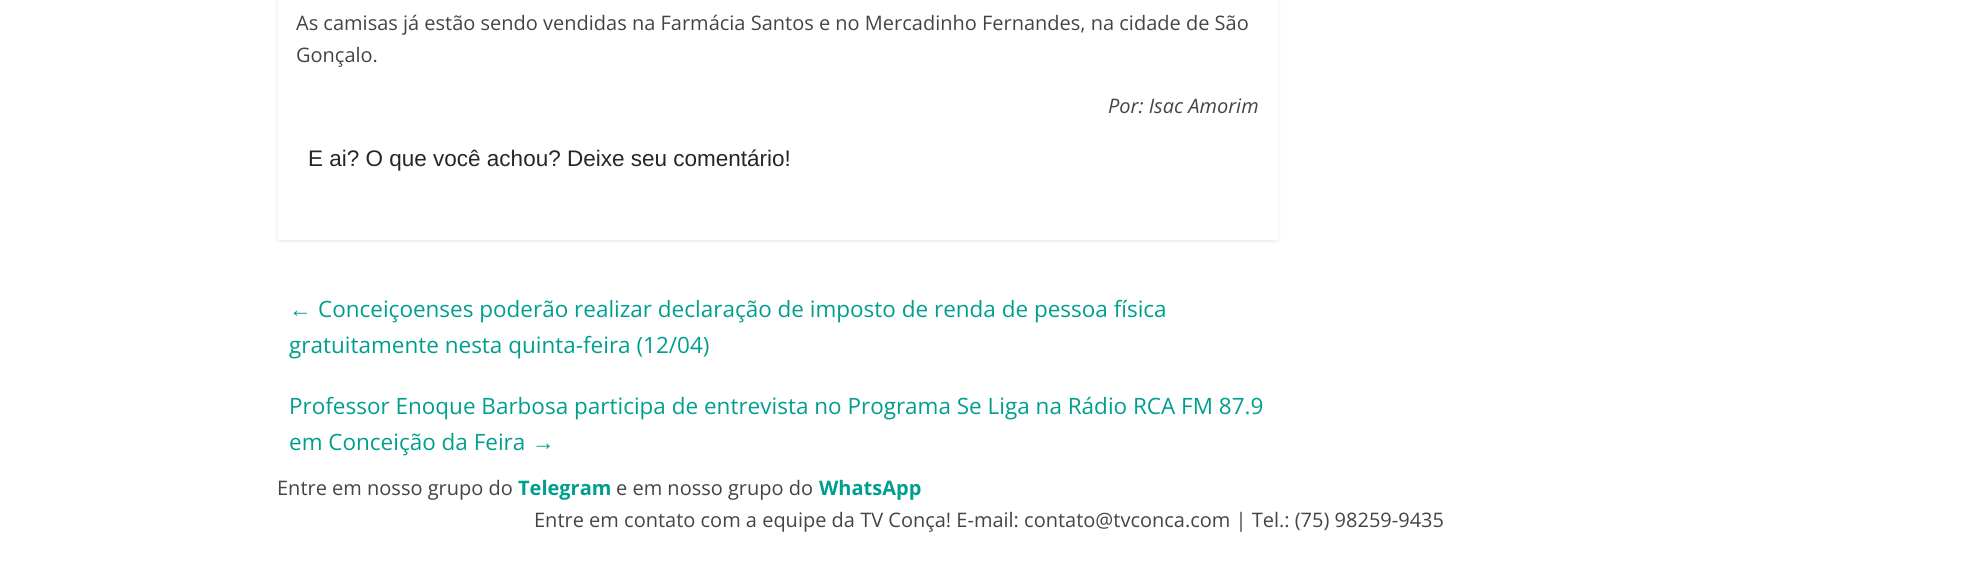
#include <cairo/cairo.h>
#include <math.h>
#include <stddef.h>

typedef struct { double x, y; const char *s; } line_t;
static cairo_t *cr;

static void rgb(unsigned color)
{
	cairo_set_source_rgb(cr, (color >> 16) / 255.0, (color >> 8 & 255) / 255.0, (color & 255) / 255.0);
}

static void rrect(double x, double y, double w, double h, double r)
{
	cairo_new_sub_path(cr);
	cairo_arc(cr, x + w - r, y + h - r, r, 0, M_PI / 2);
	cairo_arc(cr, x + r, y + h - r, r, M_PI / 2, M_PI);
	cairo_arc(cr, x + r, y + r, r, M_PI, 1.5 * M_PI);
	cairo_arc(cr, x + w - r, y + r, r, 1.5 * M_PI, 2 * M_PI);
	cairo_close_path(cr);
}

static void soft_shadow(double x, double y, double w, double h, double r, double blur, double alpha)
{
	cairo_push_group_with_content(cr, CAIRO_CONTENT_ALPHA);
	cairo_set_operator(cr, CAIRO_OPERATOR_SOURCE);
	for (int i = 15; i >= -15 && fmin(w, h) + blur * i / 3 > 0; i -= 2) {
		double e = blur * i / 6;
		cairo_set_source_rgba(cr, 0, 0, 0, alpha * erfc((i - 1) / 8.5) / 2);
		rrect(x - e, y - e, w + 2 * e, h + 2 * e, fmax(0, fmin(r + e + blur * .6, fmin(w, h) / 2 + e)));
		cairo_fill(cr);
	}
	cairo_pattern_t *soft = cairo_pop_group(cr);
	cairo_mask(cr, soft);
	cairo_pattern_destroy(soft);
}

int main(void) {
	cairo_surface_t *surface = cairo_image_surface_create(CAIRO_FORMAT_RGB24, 1978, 561);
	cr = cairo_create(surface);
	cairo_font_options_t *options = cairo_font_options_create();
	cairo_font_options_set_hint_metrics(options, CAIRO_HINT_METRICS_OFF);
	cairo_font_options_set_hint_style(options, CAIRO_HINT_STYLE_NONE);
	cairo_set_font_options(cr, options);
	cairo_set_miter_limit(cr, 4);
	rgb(0xffffff);
	cairo_paint(cr);
	cairo_save(cr);
	cairo_set_fill_rule(cr, CAIRO_FILL_RULE_EVEN_ODD);
	cairo_new_path(cr);
	cairo_move_to(cr, 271, 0);
	cairo_line_to(cr, 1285, 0);
	cairo_line_to(cr, 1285, 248);
	cairo_line_to(cr, 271, 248);
	cairo_close_path(cr);
	cairo_move_to(cr, 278, -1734);
	cairo_line_to(cr, 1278, -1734);
	cairo_line_to(cr, 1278, 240);
	cairo_line_to(cr, 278, 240);
	cairo_close_path(cr);
	cairo_clip(cr);
	rgb(0x000000);
	soft_shadow(278, -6, 1000, 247, 0, 2, 0.1);
	cairo_restore(cr);
	cairo_select_font_face(cr, "Open Sans", CAIRO_FONT_SLANT_NORMAL, CAIRO_FONT_WEIGHT_NORMAL);
	cairo_set_font_size(cr, 20);
	rgb(0x444444);
	cairo_move_to(cr, 296, 30);
	cairo_show_text(cr, "As camisas já estão sendo vendidas na Farmácia Santos e no Mercadinho Fernandes, na cidade de São");
	cairo_move_to(cr, 296, 62);
	cairo_show_text(cr, "Gonçalo.");
	cairo_select_font_face(cr, "Open Sans", CAIRO_FONT_SLANT_ITALIC, CAIRO_FONT_WEIGHT_NORMAL);
	cairo_move_to(cr, 1108, 113);
	cairo_show_text(cr, "Por: Isac Amorim");
	cairo_select_font_face(cr, "Liberation Sans", CAIRO_FONT_SLANT_NORMAL, CAIRO_FONT_WEIGHT_NORMAL);
	cairo_set_font_size(cr, 22.5);
	rgb(0x262626);
	cairo_move_to(cr, 308, 166);
	cairo_show_text(cr, "E ai? O que você achou? Deixe seu comentário!");
	cairo_select_font_face(cr, "Liberation Serif", CAIRO_FONT_SLANT_NORMAL, CAIRO_FONT_WEIGHT_NORMAL);
	rgb(0x009e8e);
	cairo_move_to(cr, 289, 317);
	cairo_show_text(cr, "←");
	cairo_select_font_face(cr, "Open Sans", CAIRO_FONT_SLANT_NORMAL, CAIRO_FONT_WEIGHT_NORMAL);
	{
		static const line_t items[] = {
			{318, 317, "Conceiçoenses poderão realizar declaração de imposto de renda de pessoa física"},
			{289, 353, "gratuitamente nesta quinta-feira (12/04)"},
			{289, 414, "Professor Enoque Barbosa participa de entrevista no Programa Se Liga na Rádio RCA FM 87.9"},
			{289, 450, "em Conceição da Feira"},
		};
		for (size_t i = 0; i < sizeof items / sizeof *items; i++) {
			cairo_move_to(cr, items[i].x, items[i].y);
			cairo_show_text(cr, items[i].s);
		}
	}
	cairo_select_font_face(cr, "Liberation Serif", CAIRO_FONT_SLANT_NORMAL, CAIRO_FONT_WEIGHT_NORMAL);
	cairo_move_to(cr, 532, 450);
	cairo_show_text(cr, "→");
	cairo_select_font_face(cr, "Open Sans", CAIRO_FONT_SLANT_NORMAL, CAIRO_FONT_WEIGHT_NORMAL);
	cairo_set_font_size(cr, 20);
	rgb(0x444444);
	cairo_move_to(cr, 277, 495);
	cairo_show_text(cr, "Entre em nosso grupo do");
	cairo_select_font_face(cr, "Open Sans", CAIRO_FONT_SLANT_NORMAL, CAIRO_FONT_WEIGHT_BOLD);
	rgb(0x009e8e);
	cairo_move_to(cr, 518, 495);
	cairo_show_text(cr, "Telegram");
	cairo_select_font_face(cr, "Open Sans", CAIRO_FONT_SLANT_NORMAL, CAIRO_FONT_WEIGHT_NORMAL);
	rgb(0x444444);
	cairo_move_to(cr, 616, 495);
	cairo_show_text(cr, "e em nosso grupo do");
	cairo_select_font_face(cr, "Open Sans", CAIRO_FONT_SLANT_NORMAL, CAIRO_FONT_WEIGHT_BOLD);
	rgb(0x009e8e);
	cairo_move_to(cr, 819, 495);
	cairo_show_text(cr, "WhatsApp");
	cairo_select_font_face(cr, "Open Sans", CAIRO_FONT_SLANT_NORMAL, CAIRO_FONT_WEIGHT_NORMAL);
	rgb(0x444444);
	cairo_move_to(cr, 534, 527);
	cairo_show_text(cr, "Entre em contato com a equipe da TV Conça! E-mail: contato@tvconca.com | Tel.: (75) 98259-9435");
	cairo_surface_write_to_png(surface, "page.png");
	cairo_font_options_destroy(options);
	cairo_destroy(cr);
	cairo_surface_destroy(surface);
	return 0;
}
